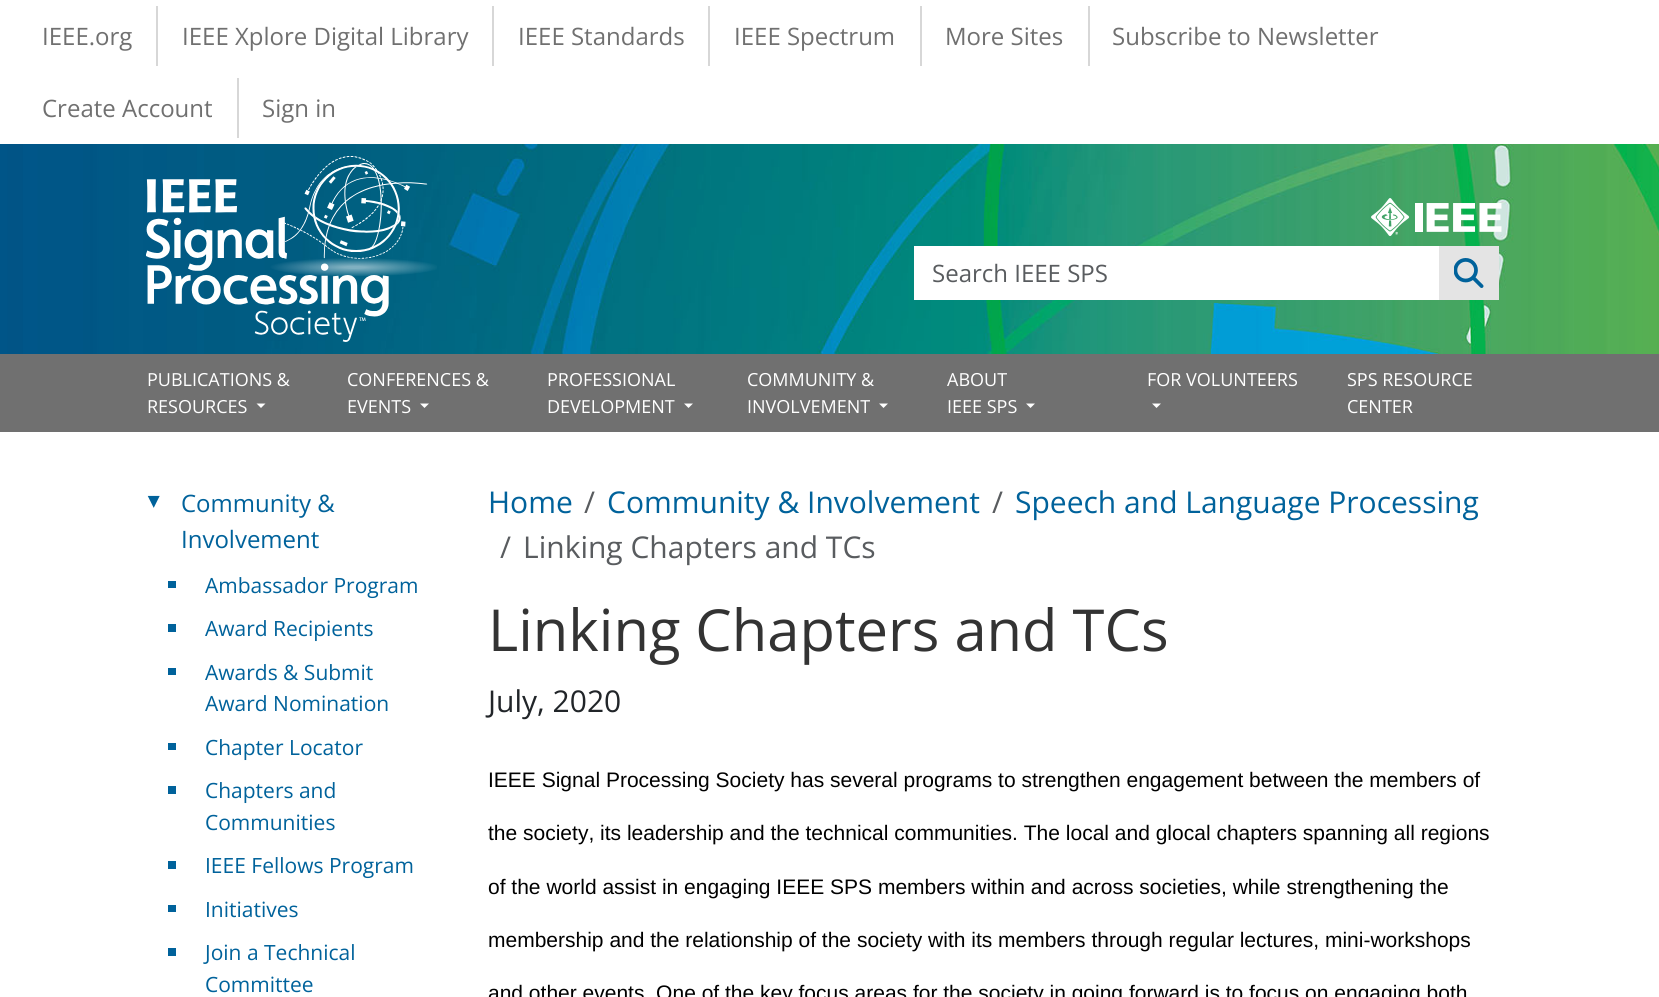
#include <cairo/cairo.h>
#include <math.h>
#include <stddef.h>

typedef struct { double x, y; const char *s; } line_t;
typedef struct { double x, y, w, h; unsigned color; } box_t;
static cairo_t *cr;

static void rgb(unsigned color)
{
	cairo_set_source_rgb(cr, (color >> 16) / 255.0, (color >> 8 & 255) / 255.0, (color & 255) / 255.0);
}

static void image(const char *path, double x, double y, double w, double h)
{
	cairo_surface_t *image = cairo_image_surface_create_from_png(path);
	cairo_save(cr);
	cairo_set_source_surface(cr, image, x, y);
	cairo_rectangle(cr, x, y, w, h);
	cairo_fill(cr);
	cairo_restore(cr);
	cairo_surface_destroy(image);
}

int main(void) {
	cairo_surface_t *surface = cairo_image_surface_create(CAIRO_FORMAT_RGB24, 1659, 997);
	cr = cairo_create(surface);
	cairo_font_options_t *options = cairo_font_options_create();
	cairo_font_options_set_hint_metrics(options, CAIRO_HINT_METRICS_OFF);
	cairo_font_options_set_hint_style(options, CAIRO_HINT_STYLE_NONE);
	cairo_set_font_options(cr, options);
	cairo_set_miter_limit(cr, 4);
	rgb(0xffffff);
	cairo_paint(cr);
	{
		static const box_t items[] = {
			{156, 6, 2, 60, 0xd7d7d7},
			{492, 6, 2, 60, 0xd7d7d7},
			{708, 6, 2, 60, 0xd7d7d7},
			{920, 6, 2, 60, 0xd7d7d7},
			{1088, 6, 2, 60, 0xd7d7d7},
			{237, 78, 2, 60, 0xd7d7d7},
			{0, 354, 1659, 78, 0x707070},
		};
		for (size_t i = 0; i < sizeof items / sizeof *items; i++) {
			rgb(items[i].color);
			cairo_rectangle(cr, items[i].x, items[i].y, items[i].w, items[i].h);
			cairo_fill(cr);
		}
	}
	image("img/1.png", 0, 144, 1659, 210);
	image("img/2.png", 146, 156, 291, 186);
	image("img/3.png", 1371, 198, 131, 38);
	rgb(0xffffff);
	cairo_rectangle(cr, 914, 246, 525, 54);
	cairo_fill(cr);
	rgb(0xe4e4e4);
	cairo_rectangle(cr, 1439, 246, 60, 54);
	cairo_fill(cr);
	image("img/4.png", 1454, 258, 30, 30);
	rgb(0xffffff);
	cairo_new_path(cr);
	cairo_move_to(cr, 256.5, 403.5);
	cairo_line_to(cr, 265.5, 403.5);
	cairo_line_to(cr, 261, 408);
	cairo_close_path(cr);
	cairo_fill(cr);
	cairo_new_path(cr);
	cairo_move_to(cr, 420, 403.5);
	cairo_line_to(cr, 429, 403.5);
	cairo_line_to(cr, 424.5, 408);
	cairo_close_path(cr);
	cairo_fill(cr);
	cairo_new_path(cr);
	cairo_move_to(cr, 684, 403.5);
	cairo_line_to(cr, 693, 403.5);
	cairo_line_to(cr, 688.5, 408);
	cairo_close_path(cr);
	cairo_fill(cr);
	cairo_new_path(cr);
	cairo_move_to(cr, 879, 403.5);
	cairo_line_to(cr, 888, 403.5);
	cairo_line_to(cr, 883.5, 408);
	cairo_close_path(cr);
	cairo_fill(cr);
	cairo_new_path(cr);
	cairo_move_to(cr, 1026, 403.5);
	cairo_line_to(cr, 1035, 403.5);
	cairo_line_to(cr, 1030.5, 408);
	cairo_close_path(cr);
	cairo_fill(cr);
	cairo_new_path(cr);
	cairo_move_to(cr, 1152, 403.5);
	cairo_line_to(cr, 1161, 403.5);
	cairo_line_to(cr, 1156.5, 408);
	cairo_close_path(cr);
	cairo_fill(cr);
	{
		static const box_t items[] = {
			{168, 581, 8, 7, 0x00629b},
			{168, 624, 8, 8, 0x00629b},
			{168, 668, 8, 7, 0x00629b},
			{168, 743, 8, 7, 0x00629b},
			{168, 786, 8, 8, 0x00629b},
			{168, 861, 8, 8, 0x00629b},
			{168, 905, 8, 7, 0x00629b},
			{168, 948, 8, 8, 0x00629b},
		};
		for (size_t i = 0; i < sizeof items / sizeof *items; i++) {
			rgb(items[i].color);
			cairo_rectangle(cr, items[i].x, items[i].y, items[i].w, items[i].h);
			cairo_fill(cr);
		}
	}
	cairo_select_font_face(cr, "Open Sans", CAIRO_FONT_SLANT_NORMAL, CAIRO_FONT_WEIGHT_NORMAL);
	cairo_set_font_size(cr, 24);
	rgb(0x707070);
	{
		static const line_t items[] = {
			{42, 45, "IEEE.org"},
			{182, 45, "IEEE Xplore Digital Library"},
			{518, 45, "IEEE Standards"},
			{734, 45, "IEEE Spectrum"},
			{945, 45, "More Sites"},
			{1112, 45, "Subscribe to Newsletter"},
			{42, 117, "Create Account"},
			{262, 117, "Sign in"},
		};
		for (size_t i = 0; i < sizeof items / sizeof *items; i++) {
			cairo_move_to(cr, items[i].x, items[i].y);
			cairo_show_text(cr, items[i].s);
		}
	}
	rgb(0x595c5f);
	cairo_move_to(cr, 932, 282);
	cairo_show_text(cr, "Search IEEE SPS");
	cairo_set_font_size(cr, 18);
	rgb(0xffffff);
	{
		static const line_t items[] = {
			{147, 386, "PUBLICATIONS &"},
			{147, 413, "RESOURCES"},
			{347, 386, "CONFERENCES &"},
			{347, 413, "EVENTS"},
			{547, 386, "PROFESSIONAL"},
			{547, 413, "DEVELOPMENT"},
			{747, 386, "COMMUNITY &"},
			{747, 413, "INVOLVEMENT"},
			{947, 386, "ABOUT"},
			{947, 413, "IEEE SPS"},
			{1147, 386, "FOR VOLUNTEERS"},
			{1347, 386, "SPS RESOURCE"},
			{1347, 413, "CENTER"},
		};
		for (size_t i = 0; i < sizeof items / sizeof *items; i++) {
			cairo_move_to(cr, items[i].x, items[i].y);
			cairo_show_text(cr, items[i].s);
		}
	}
	cairo_select_font_face(cr, "Liberation Sans", CAIRO_FONT_SLANT_NORMAL, CAIRO_FONT_WEIGHT_NORMAL);
	cairo_set_font_size(cr, 20);
	rgb(0x00629b);
	cairo_save(cr);
	cairo_translate(cr, 148, 492);
	cairo_rotate(cr, 90 * M_PI / 180);
	cairo_move_to(cr, 0, 0);
	cairo_show_text(cr, "►");
	cairo_restore(cr);
	cairo_select_font_face(cr, "Open Sans", CAIRO_FONT_SLANT_NORMAL, CAIRO_FONT_WEIGHT_NORMAL);
	cairo_set_font_size(cr, 24);
	cairo_move_to(cr, 181, 512);
	cairo_show_text(cr, "Community &");
	cairo_move_to(cr, 181, 548);
	cairo_show_text(cr, "Involvement");
	cairo_set_font_size(cr, 21);
	{
		static const line_t items[] = {
			{205, 593, "Ambassador Program"},
			{205, 636, "Award Recipients"},
			{205, 680, "Awards & Submit"},
			{205, 711, "Award Nomination"},
			{205, 755, "Chapter Locator"},
			{205, 798, "Chapters and"},
			{205, 830, "Communities"},
			{205, 873, "IEEE Fellows Program"},
			{205, 917, "Initiatives"},
			{205, 960, "Join a Technical"},
			{205, 992, "Committee"},
		};
		for (size_t i = 0; i < sizeof items / sizeof *items; i++) {
			cairo_move_to(cr, items[i].x, items[i].y);
			cairo_show_text(cr, items[i].s);
		}
	}
	cairo_set_font_size(cr, 30);
	cairo_move_to(cr, 488, 513);
	cairo_show_text(cr, "Home");
	rgb(0x595c5f);
	cairo_move_to(cr, 584, 513);
	cairo_show_text(cr, "/");
	rgb(0x00629b);
	cairo_move_to(cr, 607, 513);
	cairo_show_text(cr, "Community & Involvement");
	rgb(0x595c5f);
	cairo_move_to(cr, 992, 513);
	cairo_show_text(cr, "/");
	rgb(0x00629b);
	cairo_move_to(cr, 1015, 513);
	cairo_show_text(cr, "Speech and Language Processing");
	rgb(0x595c5f);
	cairo_move_to(cr, 500, 558);
	cairo_show_text(cr, "/");
	cairo_move_to(cr, 523, 558);
	cairo_show_text(cr, "Linking Chapters and TCs");
	cairo_set_font_size(cr, 57.9);
	rgb(0x333333);
	cairo_move_to(cr, 488, 651);
	cairo_show_text(cr, "Linking Chapters and TCs");
	cairo_set_font_size(cr, 30);
	rgb(0x212529);
	cairo_move_to(cr, 488, 712);
	cairo_show_text(cr, "July, 2020");
	cairo_select_font_face(cr, "Liberation Sans", CAIRO_FONT_SLANT_NORMAL, CAIRO_FONT_WEIGHT_NORMAL);
	cairo_set_font_size(cr, 21);
	rgb(0x000000);
	{
		static const line_t items[] = {
			{488, 787, "IEEE Signal Processing Society has several programs to strengthen engagement between the members of"},
			{488, 840, "the society, its leadership and the technical communities. The local and glocal chapters spanning all regions"},
			{488, 894, "of the world assist in engaging IEEE SPS members within and across societies, while strengthening the"},
			{488, 947, "membership and the relationship of the society with its members through regular lectures, mini-workshops"},
			{488, 1000, "and other events. One of the key focus areas for the society in going forward is to focus on engaging both"},
		};
		for (size_t i = 0; i < sizeof items / sizeof *items; i++) {
			cairo_move_to(cr, items[i].x, items[i].y);
			cairo_show_text(cr, items[i].s);
		}
	}
	cairo_surface_write_to_png(surface, "page.png");
	cairo_font_options_destroy(options);
	cairo_destroy(cr);
	cairo_surface_destroy(surface);
	return 0;
}
